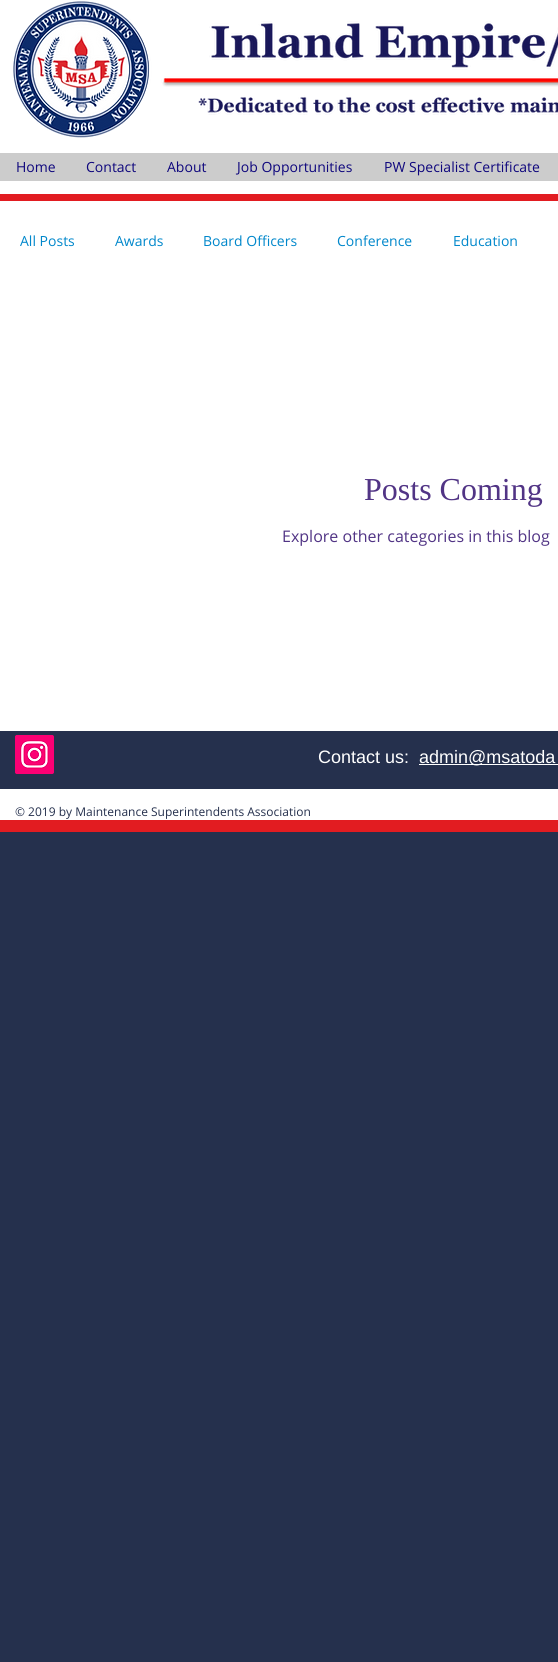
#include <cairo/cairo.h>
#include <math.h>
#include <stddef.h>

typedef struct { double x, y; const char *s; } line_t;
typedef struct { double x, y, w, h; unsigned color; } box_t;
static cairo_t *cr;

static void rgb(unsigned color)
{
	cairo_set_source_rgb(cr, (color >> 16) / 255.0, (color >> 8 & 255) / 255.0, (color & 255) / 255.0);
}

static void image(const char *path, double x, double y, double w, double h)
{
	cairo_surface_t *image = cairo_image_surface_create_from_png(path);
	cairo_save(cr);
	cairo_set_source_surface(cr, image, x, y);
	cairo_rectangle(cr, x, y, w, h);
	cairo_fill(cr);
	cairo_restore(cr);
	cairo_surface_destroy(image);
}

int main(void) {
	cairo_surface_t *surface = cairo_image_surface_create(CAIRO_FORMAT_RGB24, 558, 1662);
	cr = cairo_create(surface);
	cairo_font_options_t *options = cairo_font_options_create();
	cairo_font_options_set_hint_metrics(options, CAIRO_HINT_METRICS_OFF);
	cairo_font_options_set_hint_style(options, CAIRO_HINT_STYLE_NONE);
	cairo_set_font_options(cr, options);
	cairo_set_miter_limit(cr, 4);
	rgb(0x25304d);
	cairo_paint(cr);
	rgb(0xffffff);
	cairo_rectangle(cr, 0, 0, 558, 194);
	cairo_fill(cr);
	rgb(0xe21c21);
	cairo_rectangle(cr, 0, 194, 558, 7);
	cairo_fill(cr);
	image("img/1.png", 13, 1, 545, 137);
	rgb(0xcccccc);
	cairo_rectangle(cr, 0, 153, 558, 28);
	cairo_fill(cr);
	rgb(0xffffff);
	cairo_rectangle(cr, 0, 201, 558, 530);
	cairo_fill(cr);
	image("img/2.png", 15, 735, 39, 39);
	{
		static const box_t items[] = {
			{419, 764, 139, 1, 0xffffff},
			{0, 789, 558, 31, 0xffffff},
			{0, 820, 558, 12, 0xe21c21},
		};
		for (size_t i = 0; i < sizeof items / sizeof *items; i++) {
			rgb(items[i].color);
			cairo_rectangle(cr, items[i].x, items[i].y, items[i].w, items[i].h);
			cairo_fill(cr);
		}
	}
	cairo_select_font_face(cr, "Open Sans", CAIRO_FONT_SLANT_NORMAL, CAIRO_FONT_WEIGHT_NORMAL);
	cairo_set_font_size(cr, 14);
	rgb(0x0f077d);
	{
		static const line_t items[] = {
			{16, 172, "Home"},
			{86, 172, "Contact"},
			{167, 172, "About"},
			{237, 172, "Job Opportunities"},
			{384, 172, "PW Specialist Certificate"},
		};
		for (size_t i = 0; i < sizeof items / sizeof *items; i++) {
			cairo_move_to(cr, items[i].x, items[i].y);
			cairo_show_text(cr, items[i].s);
		}
	}
	rgb(0x0087cb);
	{
		static const line_t items[] = {
			{20, 246, "All Posts"},
			{115, 246, "Awards"},
			{203, 246, "Board Officers"},
			{337, 246, "Conference"},
			{453, 246, "Education"},
		};
		for (size_t i = 0; i < sizeof items / sizeof *items; i++) {
			cairo_move_to(cr, items[i].x, items[i].y);
			cairo_show_text(cr, items[i].s);
		}
	}
	cairo_select_font_face(cr, "Liberation Serif", CAIRO_FONT_SLANT_NORMAL, CAIRO_FONT_WEIGHT_NORMAL);
	cairo_set_font_size(cr, 32);
	rgb(0x513485);
	cairo_move_to(cr, 364, 500);
	cairo_show_text(cr, "Posts Coming");
	cairo_select_font_face(cr, "Open Sans", CAIRO_FONT_SLANT_NORMAL, CAIRO_FONT_WEIGHT_NORMAL);
	cairo_set_font_size(cr, 16);
	cairo_move_to(cr, 282, 542);
	cairo_show_text(cr, "Explore other categories in this blog");
	cairo_select_font_face(cr, "Liberation Sans", CAIRO_FONT_SLANT_NORMAL, CAIRO_FONT_WEIGHT_NORMAL);
	cairo_set_font_size(cr, 18);
	rgb(0xffffff);
	cairo_move_to(cr, 318, 763);
	cairo_show_text(cr, "Contact us:");
	cairo_move_to(cr, 419, 763);
	cairo_show_text(cr, "admin@msatoda");
	cairo_select_font_face(cr, "Open Sans", CAIRO_FONT_SLANT_NORMAL, CAIRO_FONT_WEIGHT_NORMAL);
	cairo_set_font_size(cr, 12);
	rgb(0x25304d);
	cairo_move_to(cr, 15, 816);
	cairo_show_text(cr, "© 2019 by Maintenance Superintendents Association");
	cairo_surface_write_to_png(surface, "page.png");
	cairo_font_options_destroy(options);
	cairo_destroy(cr);
	cairo_surface_destroy(surface);
	return 0;
}
